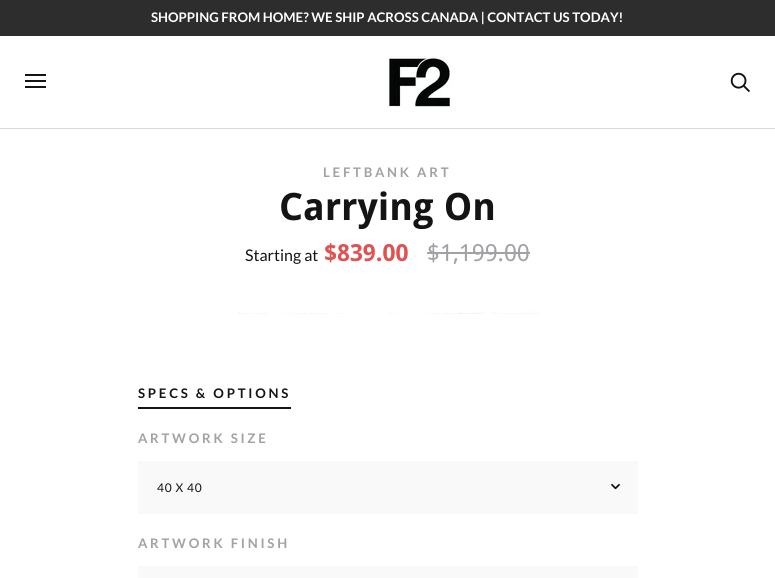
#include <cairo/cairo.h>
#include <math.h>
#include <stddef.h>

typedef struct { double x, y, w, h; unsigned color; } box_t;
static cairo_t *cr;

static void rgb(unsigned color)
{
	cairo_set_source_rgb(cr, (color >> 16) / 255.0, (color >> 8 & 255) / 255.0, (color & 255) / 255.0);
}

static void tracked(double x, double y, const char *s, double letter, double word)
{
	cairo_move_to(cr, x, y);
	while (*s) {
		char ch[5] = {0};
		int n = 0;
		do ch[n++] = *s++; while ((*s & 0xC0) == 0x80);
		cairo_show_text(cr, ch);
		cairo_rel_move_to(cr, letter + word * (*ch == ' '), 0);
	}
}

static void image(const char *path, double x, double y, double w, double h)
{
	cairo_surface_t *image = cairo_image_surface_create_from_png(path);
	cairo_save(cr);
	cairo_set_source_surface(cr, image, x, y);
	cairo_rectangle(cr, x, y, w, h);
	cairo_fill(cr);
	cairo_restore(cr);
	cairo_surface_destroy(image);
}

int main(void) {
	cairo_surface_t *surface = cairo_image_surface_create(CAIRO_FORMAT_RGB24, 775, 578);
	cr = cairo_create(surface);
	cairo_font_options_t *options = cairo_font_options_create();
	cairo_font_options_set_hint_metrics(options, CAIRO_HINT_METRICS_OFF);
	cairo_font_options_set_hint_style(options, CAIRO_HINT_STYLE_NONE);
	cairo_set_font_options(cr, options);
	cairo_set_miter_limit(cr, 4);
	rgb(0xffffff);
	cairo_paint(cr);
	{
		static const box_t items[] = {
			{0, 0, 775, 36, 0x2d2d2d},
			{0, 128, 775, 1, 0xd9d9db},
			{25, 74, 21, 2, 0x141415},
			{25, 80, 21, 2, 0x141415},
			{25, 86, 21, 2, 0x141415},
		};
		for (size_t i = 0; i < sizeof items / sizeof *items; i++) {
			rgb(items[i].color);
			cairo_rectangle(cr, items[i].x, items[i].y, items[i].w, items[i].h);
			cairo_fill(cr);
		}
	}
	image("img/1.png", 387, 56, 64, 52);
	image("img/2.png", 730, 72, 20, 20);
	rgb(0xa1a1a6);
	cairo_rectangle(cr, 427, 252, 103, 2);
	cairo_fill(cr);
	image("img/3.png", 238, 311, 302, 3);
	rgb(0x141415);
	cairo_rectangle(cr, 138, 407, 153, 2);
	cairo_fill(cr);
	rgb(0xf9f9f9);
	cairo_rectangle(cr, 138, 461, 500, 53);
	cairo_fill(cr);
	image("img/4.png", 611, 483, 9, 7);
	cairo_rectangle(cr, 138, 566, 500, 12);
	cairo_fill(cr);
	cairo_select_font_face(cr, "Lato", CAIRO_FONT_SLANT_NORMAL, CAIRO_FONT_WEIGHT_BOLD);
	cairo_set_font_size(cr, 13.2);
	rgb(0xffffff);
	cairo_move_to(cr, 151, 22);
	cairo_show_text(cr, "SHOPPING FROM HOME? WE SHIP ACROSS CANADA | CONTACT US TODAY!");
	rgb(0xa1a1a6);
	tracked(323, 177, "LEFTBANK ART", 2.75, 0);
	cairo_select_font_face(cr, "Droid Sans", CAIRO_FONT_SLANT_NORMAL, CAIRO_FONT_WEIGHT_BOLD);
	cairo_set_font_size(cr, 37.75);
	rgb(0x141415);
	cairo_move_to(cr, 279, 220);
	cairo_show_text(cr, "Carrying On");
	cairo_select_font_face(cr, "Lato", CAIRO_FONT_SLANT_NORMAL, CAIRO_FONT_WEIGHT_NORMAL);
	cairo_set_font_size(cr, 16);
	cairo_move_to(cr, 245, 261);
	cairo_show_text(cr, "Starting at");
	cairo_select_font_face(cr, "Droid Sans", CAIRO_FONT_SLANT_NORMAL, CAIRO_FONT_WEIGHT_BOLD);
	cairo_set_font_size(cr, 23.5);
	rgb(0xe05252);
	cairo_move_to(cr, 324, 261);
	cairo_show_text(cr, "$839.00");
	cairo_select_font_face(cr, "Droid Sans", CAIRO_FONT_SLANT_NORMAL, CAIRO_FONT_WEIGHT_NORMAL);
	rgb(0xa1a1a6);
	cairo_move_to(cr, 427, 261);
	cairo_show_text(cr, "$1,199.00");
	cairo_select_font_face(cr, "Lato", CAIRO_FONT_SLANT_NORMAL, CAIRO_FONT_WEIGHT_BOLD);
	cairo_set_font_size(cr, 13.2);
	rgb(0x141415);
	tracked(138, 398, "SPECS & OPTIONS", 2.75, 0);
	rgb(0xa1a1a6);
	tracked(138, 443, "ARTWORK SIZE", 2.75, 0);
	cairo_select_font_face(cr, "Lato", CAIRO_FONT_SLANT_NORMAL, CAIRO_FONT_WEIGHT_NORMAL);
	cairo_set_font_size(cr, 12);
	rgb(0x141415);
	tracked(157, 492, "40 X 40", 0.75, 0);
	cairo_select_font_face(cr, "Lato", CAIRO_FONT_SLANT_NORMAL, CAIRO_FONT_WEIGHT_BOLD);
	cairo_set_font_size(cr, 13.2);
	rgb(0xa1a1a6);
	tracked(138, 548, "ARTWORK FINISH", 2.75, 0);
	cairo_surface_write_to_png(surface, "page.png");
	cairo_font_options_destroy(options);
	cairo_destroy(cr);
	cairo_surface_destroy(surface);
	return 0;
}
